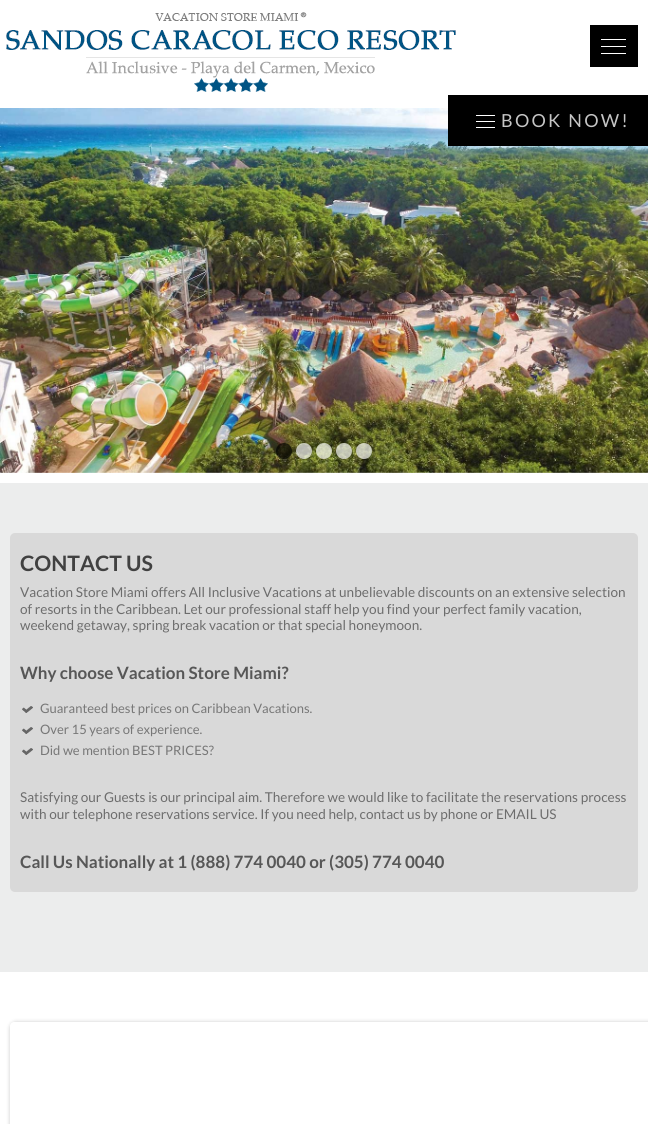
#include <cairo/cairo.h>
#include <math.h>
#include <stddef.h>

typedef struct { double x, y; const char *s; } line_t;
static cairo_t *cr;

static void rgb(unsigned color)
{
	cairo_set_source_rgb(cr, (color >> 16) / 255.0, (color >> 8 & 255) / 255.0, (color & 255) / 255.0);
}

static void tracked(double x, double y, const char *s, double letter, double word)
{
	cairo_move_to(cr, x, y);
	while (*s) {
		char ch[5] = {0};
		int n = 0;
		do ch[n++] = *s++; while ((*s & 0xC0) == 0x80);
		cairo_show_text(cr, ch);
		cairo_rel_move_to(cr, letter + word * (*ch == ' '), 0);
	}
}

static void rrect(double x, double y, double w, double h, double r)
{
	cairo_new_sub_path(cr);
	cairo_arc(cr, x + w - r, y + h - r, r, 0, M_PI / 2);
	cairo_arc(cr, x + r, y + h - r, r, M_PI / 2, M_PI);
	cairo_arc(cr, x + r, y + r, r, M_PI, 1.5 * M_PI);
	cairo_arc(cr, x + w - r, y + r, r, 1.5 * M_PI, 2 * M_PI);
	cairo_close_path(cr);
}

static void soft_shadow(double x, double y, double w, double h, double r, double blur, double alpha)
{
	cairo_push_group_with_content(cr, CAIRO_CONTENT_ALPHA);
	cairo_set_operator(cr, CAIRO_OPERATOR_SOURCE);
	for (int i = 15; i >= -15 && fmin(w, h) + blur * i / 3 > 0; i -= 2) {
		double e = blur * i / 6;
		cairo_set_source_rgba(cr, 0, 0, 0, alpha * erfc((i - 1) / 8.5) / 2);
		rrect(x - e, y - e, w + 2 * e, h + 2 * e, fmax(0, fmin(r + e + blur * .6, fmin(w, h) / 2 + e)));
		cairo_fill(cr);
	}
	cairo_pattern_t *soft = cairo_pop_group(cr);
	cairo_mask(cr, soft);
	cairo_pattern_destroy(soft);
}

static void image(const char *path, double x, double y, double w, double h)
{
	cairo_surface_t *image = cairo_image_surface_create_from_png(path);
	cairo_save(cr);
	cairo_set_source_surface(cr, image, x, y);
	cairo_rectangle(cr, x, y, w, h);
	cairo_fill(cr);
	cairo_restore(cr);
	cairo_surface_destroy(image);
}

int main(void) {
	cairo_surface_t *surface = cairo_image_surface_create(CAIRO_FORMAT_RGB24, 648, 1124);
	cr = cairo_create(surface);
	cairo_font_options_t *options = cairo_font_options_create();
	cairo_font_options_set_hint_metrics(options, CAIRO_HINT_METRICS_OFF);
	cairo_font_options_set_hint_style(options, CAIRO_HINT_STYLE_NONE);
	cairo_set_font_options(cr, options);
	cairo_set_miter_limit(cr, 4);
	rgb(0xffffff);
	cairo_paint(cr);
	image("img/1.png", 0, 108, 648, 365);
	image("img/2.png", 276, 443, 16, 16);
	image("img/3.png", 296, 443, 16, 16);
	image("img/4.png", 316, 443, 16, 16);
	image("img/5.png", 336, 443, 16, 16);
	image("img/6.png", 356, 443, 16, 16);
	image("img/7.png", 6, 12, 450, 80);
	image("img/8.png", 590, 25, 48, 42);
	rgb(0x000000);
	cairo_rectangle(cr, 448, 95, 200, 51);
	cairo_fill(cr);
	image("img/9.png", 476, 115, 19, 13);
	rgb(0xeceded);
	cairo_rectangle(cr, 0, 483, 648, 489);
	cairo_fill(cr);
	rgb(0xd9d9d9);
	rrect(10, 533, 628, 359, 5);
	cairo_fill(cr);
	image("img/10.png", 22, 706, 11, 7);
	image("img/10.png", 22, 727, 11, 7);
	image("img/10.png", 22, 748, 11, 7);
	cairo_save(cr);
	cairo_set_fill_rule(cr, CAIRO_FILL_RULE_EVEN_ODD);
	cairo_new_path(cr);
	cairo_move_to(cr, 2, 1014);
	cairo_line_to(cr, 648, 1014);
	cairo_line_to(cr, 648, 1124);
	cairo_line_to(cr, 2, 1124);
	cairo_close_path(cr);
	cairo_move_to(cr, 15, 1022);
	cairo_line_to(cr, 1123, 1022);
	cairo_curve_to(cr, 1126, 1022, 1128, 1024, 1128, 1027);
	cairo_line_to(cr, 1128, 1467);
	cairo_curve_to(cr, 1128, 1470, 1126, 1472, 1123, 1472);
	cairo_line_to(cr, 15, 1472);
	cairo_curve_to(cr, 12, 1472, 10, 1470, 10, 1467);
	cairo_line_to(cr, 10, 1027);
	cairo_curve_to(cr, 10, 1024, 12, 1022, 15, 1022);
	cairo_close_path(cr);
	cairo_clip(cr);
	rgb(0x000000);
	soft_shadow(11, 1023, 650, 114, 5, 2.5, 0.3);
	cairo_restore(cr);
	cairo_select_font_face(cr, "Lato", CAIRO_FONT_SLANT_NORMAL, CAIRO_FONT_WEIGHT_NORMAL);
	cairo_set_font_size(cr, 18);
	rgb(0xc5c5c5);
	tracked(501, 127, "BOOK NOW!", 2.25, 0);
	cairo_select_font_face(cr, "Lato", CAIRO_FONT_SLANT_NORMAL, CAIRO_FONT_WEIGHT_BOLD);
	cairo_set_font_size(cr, 21.25);
	rgb(0x414141);
	cairo_move_to(cr, 20, 571);
	cairo_show_text(cr, "CONTACT US");
	cairo_select_font_face(cr, "Lato", CAIRO_FONT_SLANT_NORMAL, CAIRO_FONT_WEIGHT_NORMAL);
	cairo_set_font_size(cr, 13.6);
	rgb(0x6d6d6d);
	{
		static const line_t items[] = {
			{20, 597, "Vacation Store Miami offers All Inclusive Vacations at unbelievable discounts on an extensive selection"},
			{20, 614, "of resorts in the Caribbean. Let our professional staff help you find your perfect family vacation,"},
			{20, 630, "weekend getaway, spring break vacation or that special honeymoon."},
		};
		for (size_t i = 0; i < sizeof items / sizeof *items; i++) {
			cairo_move_to(cr, items[i].x, items[i].y);
			cairo_show_text(cr, items[i].s);
		}
	}
	cairo_select_font_face(cr, "Lato", CAIRO_FONT_SLANT_NORMAL, CAIRO_FONT_WEIGHT_BOLD);
	cairo_set_font_size(cr, 17);
	rgb(0x575757);
	cairo_move_to(cr, 20, 679);
	cairo_show_text(cr, "Why choose Vacation Store Miami?");
	cairo_select_font_face(cr, "Lato", CAIRO_FONT_SLANT_NORMAL, CAIRO_FONT_WEIGHT_NORMAL);
	cairo_set_font_size(cr, 13);
	rgb(0x777777);
	{
		static const line_t items[] = {
			{40, 713, "Guaranteed best prices on Caribbean Vacations."},
			{40, 734, "Over 15 years of experience."},
			{40, 755, "Did we mention BEST PRICES?"},
		};
		for (size_t i = 0; i < sizeof items / sizeof *items; i++) {
			cairo_move_to(cr, items[i].x, items[i].y);
			cairo_show_text(cr, items[i].s);
		}
	}
	cairo_set_font_size(cr, 13.6);
	rgb(0x6d6d6d);
	cairo_move_to(cr, 20, 802);
	cairo_show_text(cr, "Satisfying our Guests is our principal aim. Therefore we would like to facilitate the reservations process");
	cairo_move_to(cr, 20, 819);
	cairo_show_text(cr, "with our telephone reservations service. If you need help, contact us by phone or EMAIL US");
	cairo_select_font_face(cr, "Lato", CAIRO_FONT_SLANT_NORMAL, CAIRO_FONT_WEIGHT_BOLD);
	cairo_set_font_size(cr, 17);
	rgb(0x575757);
	cairo_move_to(cr, 20, 868);
	cairo_show_text(cr, "Call Us Nationally at 1 (888) 774 0040 or (305) 774 0040");
	cairo_surface_write_to_png(surface, "page.png");
	cairo_font_options_destroy(options);
	cairo_destroy(cr);
	cairo_surface_destroy(surface);
	return 0;
}
